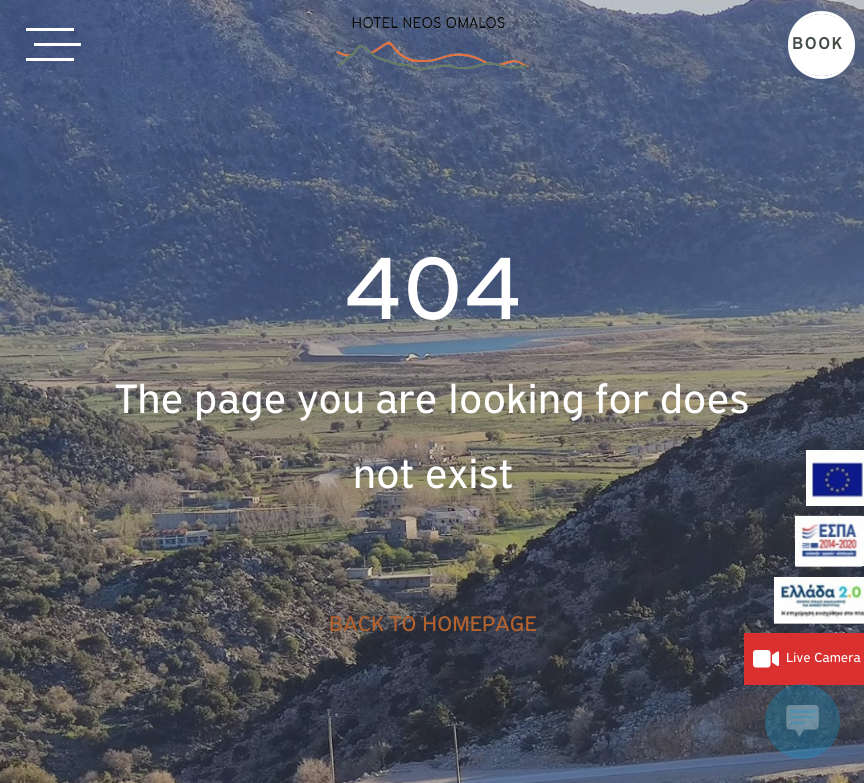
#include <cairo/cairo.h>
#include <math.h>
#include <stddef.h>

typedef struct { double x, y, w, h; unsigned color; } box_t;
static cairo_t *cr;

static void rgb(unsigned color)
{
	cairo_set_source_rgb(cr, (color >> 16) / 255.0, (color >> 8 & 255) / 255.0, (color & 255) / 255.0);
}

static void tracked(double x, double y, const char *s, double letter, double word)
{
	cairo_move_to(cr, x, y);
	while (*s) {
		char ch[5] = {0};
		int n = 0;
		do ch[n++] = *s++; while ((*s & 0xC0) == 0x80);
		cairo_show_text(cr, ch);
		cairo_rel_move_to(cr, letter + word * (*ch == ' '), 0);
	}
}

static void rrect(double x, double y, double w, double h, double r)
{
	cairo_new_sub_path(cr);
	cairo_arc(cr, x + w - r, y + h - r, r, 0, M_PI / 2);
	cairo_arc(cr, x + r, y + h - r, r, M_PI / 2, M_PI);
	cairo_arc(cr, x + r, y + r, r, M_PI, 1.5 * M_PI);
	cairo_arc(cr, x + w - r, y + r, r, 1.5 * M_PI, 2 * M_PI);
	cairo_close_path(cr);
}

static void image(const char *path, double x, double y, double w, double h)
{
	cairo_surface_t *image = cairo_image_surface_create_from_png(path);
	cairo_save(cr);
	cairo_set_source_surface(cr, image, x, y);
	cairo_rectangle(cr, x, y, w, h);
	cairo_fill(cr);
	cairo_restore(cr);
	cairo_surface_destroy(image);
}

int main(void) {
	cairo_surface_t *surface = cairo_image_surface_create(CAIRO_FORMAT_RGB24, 864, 783);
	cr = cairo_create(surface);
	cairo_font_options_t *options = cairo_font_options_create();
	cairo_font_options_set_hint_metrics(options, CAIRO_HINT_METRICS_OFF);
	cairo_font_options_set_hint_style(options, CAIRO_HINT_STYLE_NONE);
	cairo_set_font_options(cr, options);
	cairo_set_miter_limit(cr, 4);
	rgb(0xffffff);
	cairo_paint(cr);
	image("img/2.png", 0, 0, 864, 783);
	{
		static const box_t items[] = {
			{26, 28, 48, 3, 0xffffff},
			{34, 43, 47, 3, 0xffffff},
			{26, 58, 48, 3, 0xffffff},
		};
		for (size_t i = 0; i < sizeof items / sizeof *items; i++) {
			rgb(items[i].color);
			cairo_rectangle(cr, items[i].x, items[i].y, items[i].w, items[i].h);
			cairo_fill(cr);
		}
	}
	image("img/1.png", 336, 16, 193, 55);
	rrect(790, 14, 63, 62, 31);
	cairo_fill(cr);
	rrect(789.5, 12.5, 64, 65, 32);
	cairo_set_line_width(cr, 3);
	cairo_stroke(cr);
	image("img/3.png", 806, 450, 58, 56);
	rgb(0xfefefe);
	cairo_rectangle(cr, 795, 516, 69, 50);
	cairo_fill(cr);
	image("img/4.png", 795, 515, 68, 52);
	rgb(0xfffdf9);
	cairo_rectangle(cr, 862, 517, 1, 2);
	cairo_fill(cr);
	image("img/5.png", 774, 577, 90, 47);
	rgb(0xdb3030);
	cairo_rectangle(cr, 744, 633, 120, 52);
	cairo_fill(cr);
	image("img/6.png", 753, 650, 26, 18);
	cairo_set_source_rgba(cr, 0.02, 0.588, 0.831, 0.3);
	cairo_arc(cr, 802.5, 721.5, 37.5, 0, 2 * M_PI);
	cairo_fill(cr);
	image("img/7.png", 786, 705, 33, 32);
	cairo_select_font_face(cr, "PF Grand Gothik", CAIRO_FONT_SLANT_NORMAL, CAIRO_FONT_WEIGHT_BOLD);
	cairo_set_font_size(cr, 17.5);
	rgb(0x454d47);
	tracked(792, 49, "BOOK", 1.5, 0);
	cairo_select_font_face(cr, "PF Grand Gothik", CAIRO_FONT_SLANT_NORMAL, CAIRO_FONT_WEIGHT_NORMAL);
	cairo_set_font_size(cr, 94);
	rgb(0xffffff);
	cairo_move_to(cr, 343, 319);
	cairo_show_text(cr, "404");
	cairo_set_font_size(cr, 43.75);
	cairo_move_to(cr, 115, 413);
	cairo_show_text(cr, "The page you are looking for does");
	cairo_move_to(cr, 353, 488);
	cairo_show_text(cr, "not exist");
	cairo_set_font_size(cr, 22.5);
	rgb(0xb6622d);
	cairo_move_to(cr, 329, 631);
	cairo_show_text(cr, "BACK TO HOMEPAGE");
	cairo_set_font_size(cr, 14);
	rgb(0xffffff);
	cairo_move_to(cr, 786, 662);
	cairo_show_text(cr, "Live Camera");
	cairo_surface_write_to_png(surface, "page.png");
	cairo_font_options_destroy(options);
	cairo_destroy(cr);
	cairo_surface_destroy(surface);
	return 0;
}
